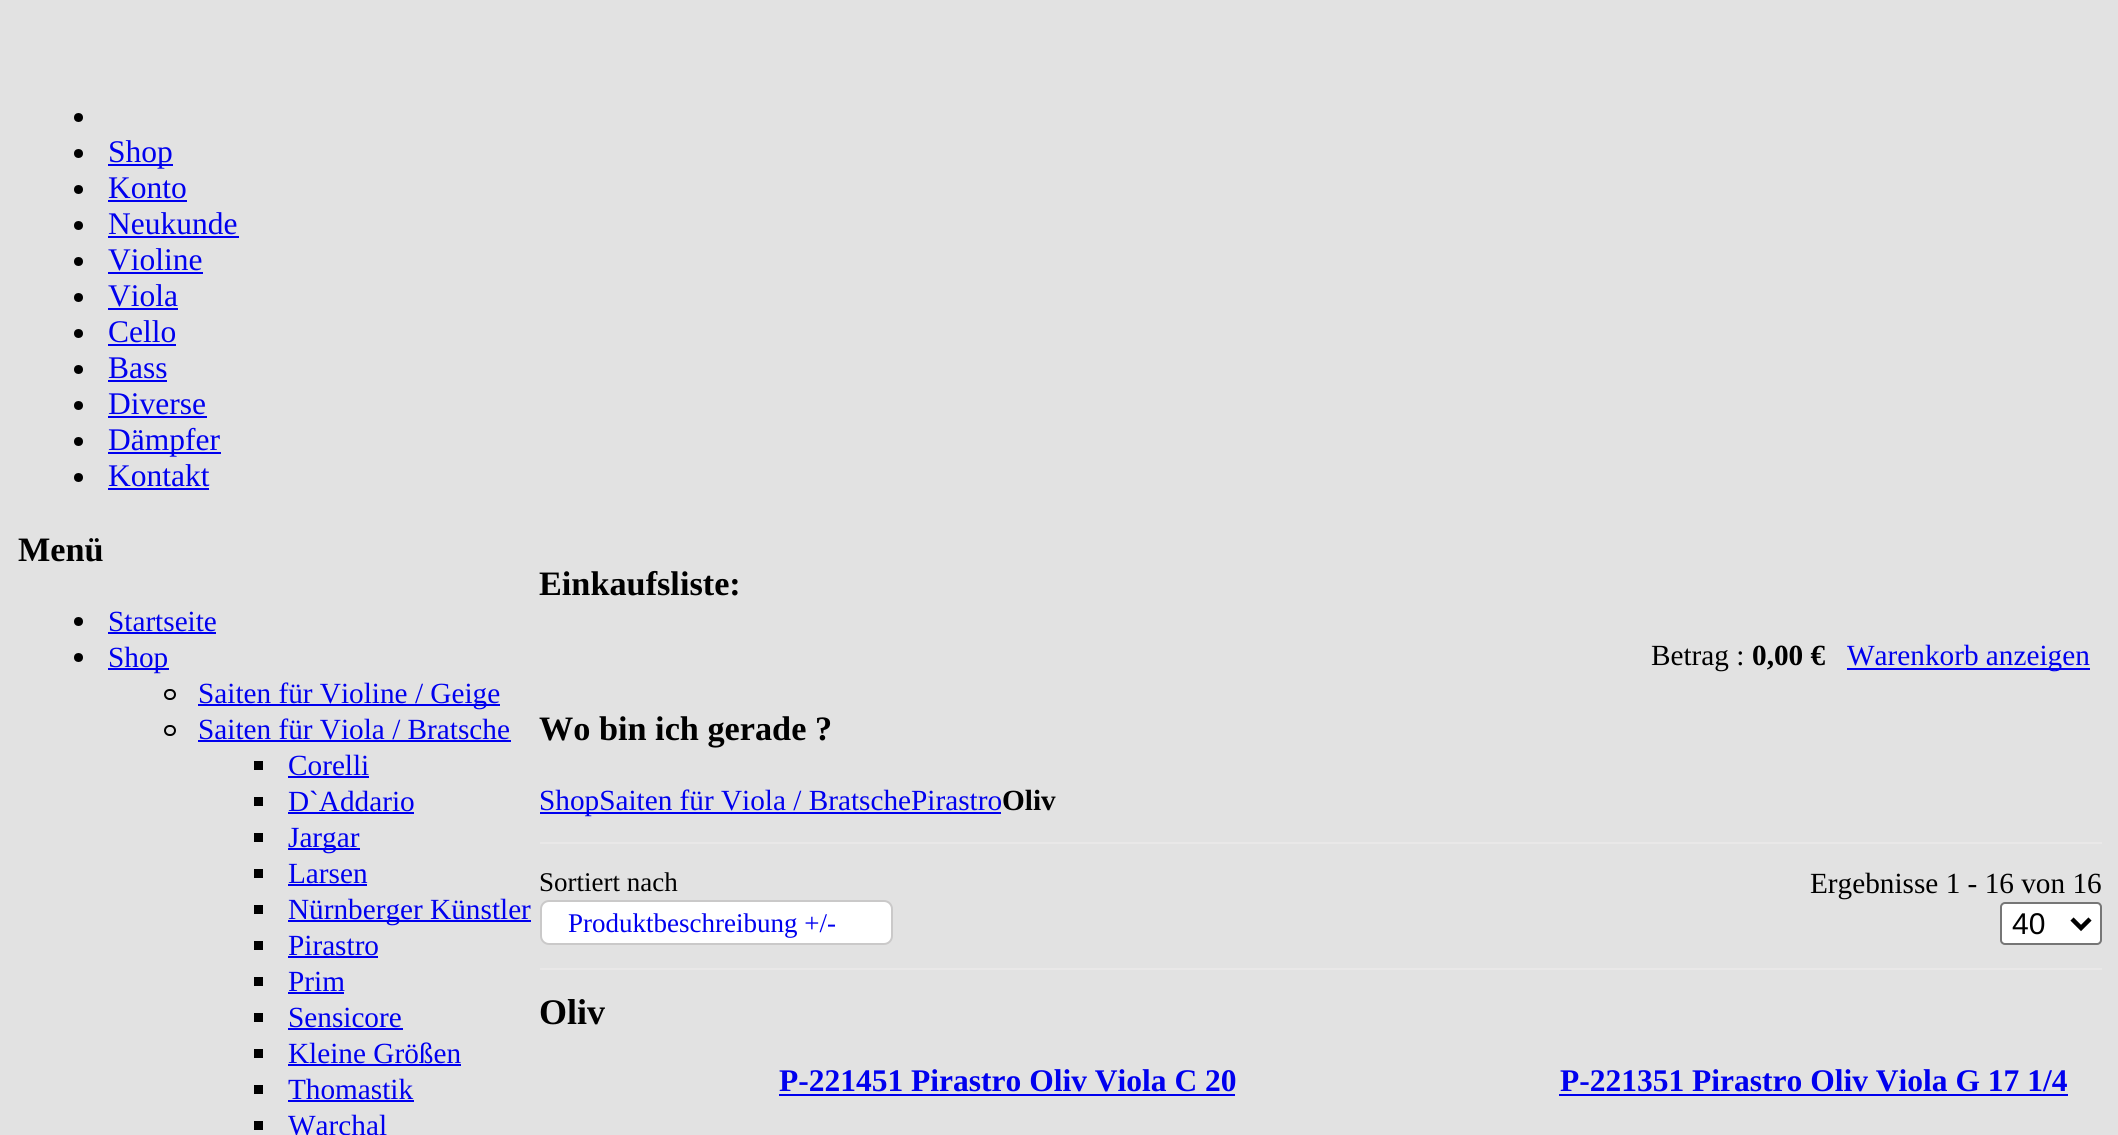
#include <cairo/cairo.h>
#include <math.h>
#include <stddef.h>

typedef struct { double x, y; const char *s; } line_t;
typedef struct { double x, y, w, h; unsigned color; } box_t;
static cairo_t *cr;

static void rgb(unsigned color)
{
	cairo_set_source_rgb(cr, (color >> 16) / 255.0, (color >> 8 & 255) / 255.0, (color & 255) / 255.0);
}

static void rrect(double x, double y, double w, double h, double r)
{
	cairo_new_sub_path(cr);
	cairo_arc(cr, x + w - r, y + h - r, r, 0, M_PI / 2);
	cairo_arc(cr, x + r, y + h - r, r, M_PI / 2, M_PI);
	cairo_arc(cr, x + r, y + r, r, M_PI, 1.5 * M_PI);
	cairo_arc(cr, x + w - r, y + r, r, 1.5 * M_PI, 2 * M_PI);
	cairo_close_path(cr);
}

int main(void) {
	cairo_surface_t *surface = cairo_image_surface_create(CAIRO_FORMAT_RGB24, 2118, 1135);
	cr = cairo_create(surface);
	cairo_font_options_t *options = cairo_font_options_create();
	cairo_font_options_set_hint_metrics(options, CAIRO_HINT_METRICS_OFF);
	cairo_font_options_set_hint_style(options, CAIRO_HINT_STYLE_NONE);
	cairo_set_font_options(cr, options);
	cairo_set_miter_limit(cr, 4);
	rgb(0xe2e2e2);
	cairo_paint(cr);
	rgb(0x000000);
	cairo_arc(cr, 78.5, 117.5, 4.5, 0, 2 * M_PI);
	cairo_fill(cr);
	cairo_arc(cr, 78.5, 153.5, 4.5, 0, 2 * M_PI);
	cairo_fill(cr);
	rgb(0x0000ee);
	cairo_rectangle(cr, 108, 164, 65, 2);
	cairo_fill(cr);
	rgb(0x000000);
	cairo_arc(cr, 78.5, 189.5, 4.5, 0, 2 * M_PI);
	cairo_fill(cr);
	rgb(0x0000ee);
	cairo_rectangle(cr, 108, 200, 79, 2);
	cairo_fill(cr);
	rgb(0x000000);
	cairo_arc(cr, 78.5, 225.5, 4.5, 0, 2 * M_PI);
	cairo_fill(cr);
	rgb(0x0000ee);
	cairo_rectangle(cr, 108, 236, 131, 2);
	cairo_fill(cr);
	rgb(0x000000);
	cairo_arc(cr, 78.5, 261.5, 4.5, 0, 2 * M_PI);
	cairo_fill(cr);
	rgb(0x0000ee);
	cairo_rectangle(cr, 108, 272, 95, 2);
	cairo_fill(cr);
	rgb(0x000000);
	cairo_arc(cr, 78.5, 297.5, 4.5, 0, 2 * M_PI);
	cairo_fill(cr);
	rgb(0x0000ee);
	cairo_rectangle(cr, 108, 308, 70, 2);
	cairo_fill(cr);
	rgb(0x000000);
	cairo_arc(cr, 78.5, 333.5, 4.5, 0, 2 * M_PI);
	cairo_fill(cr);
	rgb(0x0000ee);
	cairo_rectangle(cr, 108, 344, 68, 2);
	cairo_fill(cr);
	rgb(0x000000);
	cairo_arc(cr, 78.5, 369.5, 4.5, 0, 2 * M_PI);
	cairo_fill(cr);
	rgb(0x0000ee);
	cairo_rectangle(cr, 108, 380, 59, 2);
	cairo_fill(cr);
	rgb(0x000000);
	cairo_arc(cr, 78.5, 405.5, 4.5, 0, 2 * M_PI);
	cairo_fill(cr);
	rgb(0x0000ee);
	cairo_rectangle(cr, 108, 416, 99, 2);
	cairo_fill(cr);
	rgb(0x000000);
	cairo_arc(cr, 78.5, 441.5, 4.5, 0, 2 * M_PI);
	cairo_fill(cr);
	rgb(0x0000ee);
	cairo_rectangle(cr, 108, 452, 113, 2);
	cairo_fill(cr);
	rgb(0x000000);
	cairo_arc(cr, 78.5, 477.5, 4.5, 0, 2 * M_PI);
	cairo_fill(cr);
	rgb(0x0000ee);
	cairo_rectangle(cr, 108, 488, 101, 2);
	cairo_fill(cr);
	rgb(0x000000);
	cairo_arc(cr, 78.5, 621.5, 4.5, 0, 2 * M_PI);
	cairo_fill(cr);
	rgb(0x0000ee);
	cairo_rectangle(cr, 108, 632, 108, 2);
	cairo_fill(cr);
	rgb(0x000000);
	cairo_arc(cr, 78.5, 657.5, 4.5, 0, 2 * M_PI);
	cairo_fill(cr);
	rgb(0x0000ee);
	cairo_rectangle(cr, 108, 668, 61, 2);
	cairo_fill(cr);
	rrect(165, 690, 10, 9, 4.5);
	rgb(0x000000);
	cairo_stroke(cr);
	rgb(0x0000ee);
	cairo_rectangle(cr, 198, 704, 302, 2);
	cairo_fill(cr);
	rrect(165, 726, 10, 9, 4.5);
	rgb(0x000000);
	cairo_stroke(cr);
	{
		static const box_t items[] = {
			{198, 740, 313, 2, 0x0000ee},
			{254, 761, 9, 9, 0x000000},
			{288, 776, 81, 2, 0x0000ee},
			{254, 797, 9, 9, 0x000000},
			{288, 812, 126, 2, 0x0000ee},
			{254, 833, 9, 9, 0x000000},
			{288, 848, 72, 2, 0x0000ee},
			{254, 869, 9, 9, 0x000000},
			{288, 884, 79, 2, 0x0000ee},
			{254, 905, 9, 9, 0x000000},
			{288, 920, 243, 2, 0x0000ee},
			{254, 941, 9, 9, 0x000000},
			{288, 956, 90, 2, 0x0000ee},
			{254, 977, 9, 9, 0x000000},
			{288, 992, 56, 2, 0x0000ee},
			{254, 1013, 9, 9, 0x000000},
			{288, 1028, 115, 2, 0x0000ee},
			{254, 1049, 9, 9, 0x000000},
			{288, 1064, 173, 2, 0x0000ee},
			{254, 1085, 9, 9, 0x000000},
			{288, 1100, 126, 2, 0x0000ee},
			{254, 1121, 9, 9, 0x000000},
			{1847, 668, 243, 2, 0x0000ee},
			{540, 812, 461, 2, 0x0000ee},
			{540, 842, 1562, 2, 0xe9e8e8},
			{540, 968, 1562, 2, 0xe9e8e8},
		};
		for (size_t i = 0; i < sizeof items / sizeof *items; i++) {
			rgb(items[i].color);
			cairo_rectangle(cr, items[i].x, items[i].y, items[i].w, items[i].h);
			cairo_fill(cr);
		}
	}
	rgb(0xffffff);
	rrect(541, 901, 351, 43, 8);
	cairo_fill_preserve(cr);
	rgb(0xcac9c9);
	cairo_stroke(cr);
	rgb(0xffffff);
	rrect(2001, 903, 100, 41, 4);
	cairo_fill_preserve(cr);
	rgb(0x767676);
	cairo_stroke(cr);
	cairo_new_path(cr);
	cairo_move_to(cr, 2072, 919);
	cairo_line_to(cr, 2081, 928);
	cairo_line_to(cr, 2090, 919);
	rgb(0x000000);
	cairo_set_line_width(cr, 4.5);
	cairo_stroke(cr);
	rgb(0x0000ee);
	cairo_rectangle(cr, 779, 1094, 456, 2);
	cairo_fill(cr);
	cairo_rectangle(cr, 1559, 1094, 509, 2);
	cairo_fill(cr);
	cairo_select_font_face(cr, "Liberation Serif", CAIRO_FONT_SLANT_NORMAL, CAIRO_FONT_WEIGHT_NORMAL);
	cairo_set_font_size(cr, 31.5);
	{
		static const line_t items[] = {
			{108, 162, "Shop"},
			{108, 198, "Konto"},
			{108, 234, "Neukunde"},
			{108, 270, "Violine"},
			{108, 306, "Viola"},
			{108, 342, "Cello"},
			{108, 378, "Bass"},
			{108, 414, "Diverse"},
			{108, 450, "Dämpfer"},
			{108, 486, "Kontakt"},
		};
		for (size_t i = 0; i < sizeof items / sizeof *items; i++) {
			cairo_move_to(cr, items[i].x, items[i].y);
			cairo_show_text(cr, items[i].s);
		}
	}
	cairo_select_font_face(cr, "Liberation Serif", CAIRO_FONT_SLANT_NORMAL, CAIRO_FONT_WEIGHT_BOLD);
	cairo_set_font_size(cr, 34.25);
	rgb(0x000000);
	cairo_move_to(cr, 18, 561);
	cairo_show_text(cr, "Menü");
	cairo_select_font_face(cr, "Liberation Serif", CAIRO_FONT_SLANT_NORMAL, CAIRO_FONT_WEIGHT_NORMAL);
	cairo_set_font_size(cr, 29.25);
	rgb(0x0000ee);
	{
		static const line_t items[] = {
			{108, 631, "Startseite"},
			{108, 667, "Shop"},
			{198, 703, "Saiten für Violine / Geige"},
			{198, 739, "Saiten für Viola / Bratsche"},
			{288, 775, "Corelli"},
			{288, 811, "D`Addario"},
			{288, 847, "Jargar"},
			{288, 883, "Larsen"},
			{288, 919, "Nürnberger Künstler"},
			{288, 955, "Pirastro"},
			{288, 991, "Prim"},
			{288, 1027, "Sensicore"},
			{288, 1063, "Kleine Größen"},
			{288, 1099, "Thomastik"},
			{288, 1135, "Warchal"},
		};
		for (size_t i = 0; i < sizeof items / sizeof *items; i++) {
			cairo_move_to(cr, items[i].x, items[i].y);
			cairo_show_text(cr, items[i].s);
		}
	}
	cairo_select_font_face(cr, "Liberation Serif", CAIRO_FONT_SLANT_NORMAL, CAIRO_FONT_WEIGHT_BOLD);
	cairo_set_font_size(cr, 34.25);
	rgb(0x000000);
	cairo_move_to(cr, 539, 595);
	cairo_show_text(cr, "Einkaufsliste:");
	cairo_select_font_face(cr, "Liberation Serif", CAIRO_FONT_SLANT_NORMAL, CAIRO_FONT_WEIGHT_NORMAL);
	cairo_set_font_size(cr, 29.25);
	cairo_move_to(cr, 1651, 665);
	cairo_show_text(cr, "Betrag :");
	cairo_select_font_face(cr, "Liberation Serif", CAIRO_FONT_SLANT_NORMAL, CAIRO_FONT_WEIGHT_BOLD);
	cairo_move_to(cr, 1752, 665);
	cairo_show_text(cr, "0,00 €");
	cairo_select_font_face(cr, "Liberation Serif", CAIRO_FONT_SLANT_NORMAL, CAIRO_FONT_WEIGHT_NORMAL);
	rgb(0x0000ee);
	cairo_move_to(cr, 1847, 665);
	cairo_show_text(cr, "Warenkorb anzeigen");
	cairo_select_font_face(cr, "Liberation Serif", CAIRO_FONT_SLANT_NORMAL, CAIRO_FONT_WEIGHT_BOLD);
	cairo_set_font_size(cr, 34.25);
	rgb(0x000000);
	cairo_move_to(cr, 539, 740);
	cairo_show_text(cr, "Wo bin ich gerade ?");
	cairo_select_font_face(cr, "Liberation Serif", CAIRO_FONT_SLANT_NORMAL, CAIRO_FONT_WEIGHT_NORMAL);
	cairo_set_font_size(cr, 29.25);
	rgb(0x0000ee);
	cairo_move_to(cr, 539, 810);
	cairo_show_text(cr, "ShopSaiten für Viola / BratschePirastro");
	cairo_select_font_face(cr, "Liberation Serif", CAIRO_FONT_SLANT_NORMAL, CAIRO_FONT_WEIGHT_BOLD);
	rgb(0x000000);
	cairo_move_to(cr, 1002, 810);
	cairo_show_text(cr, "Oliv");
	cairo_select_font_face(cr, "Liberation Serif", CAIRO_FONT_SLANT_NORMAL, CAIRO_FONT_WEIGHT_NORMAL);
	cairo_set_font_size(cr, 27);
	cairo_move_to(cr, 539, 891);
	cairo_show_text(cr, "Sortiert nach");
	rgb(0x0000ee);
	cairo_move_to(cr, 568, 932);
	cairo_show_text(cr, "Produktbeschreibung +/-");
	cairo_set_font_size(cr, 29.25);
	rgb(0x000000);
	cairo_move_to(cr, 1810, 893);
	cairo_show_text(cr, "Ergebnisse 1 - 16 von 16");
	cairo_select_font_face(cr, "Liberation Sans", CAIRO_FONT_SLANT_NORMAL, CAIRO_FONT_WEIGHT_NORMAL);
	cairo_set_font_size(cr, 30);
	cairo_move_to(cr, 2012, 934);
	cairo_show_text(cr, "40");
	cairo_select_font_face(cr, "Liberation Serif", CAIRO_FONT_SLANT_NORMAL, CAIRO_FONT_WEIGHT_BOLD);
	cairo_set_font_size(cr, 36);
	cairo_move_to(cr, 539, 1024);
	cairo_show_text(cr, "Oliv");
	cairo_set_font_size(cr, 31.5);
	rgb(0x0000ee);
	cairo_move_to(cr, 779, 1091);
	cairo_show_text(cr, "P-221451 Pirastro Oliv Viola C 20");
	cairo_move_to(cr, 1560, 1091);
	cairo_show_text(cr, "P-221351 Pirastro Oliv Viola G 17 1/4");
	cairo_surface_write_to_png(surface, "page.png");
	cairo_font_options_destroy(options);
	cairo_destroy(cr);
	cairo_surface_destroy(surface);
	return 0;
}
